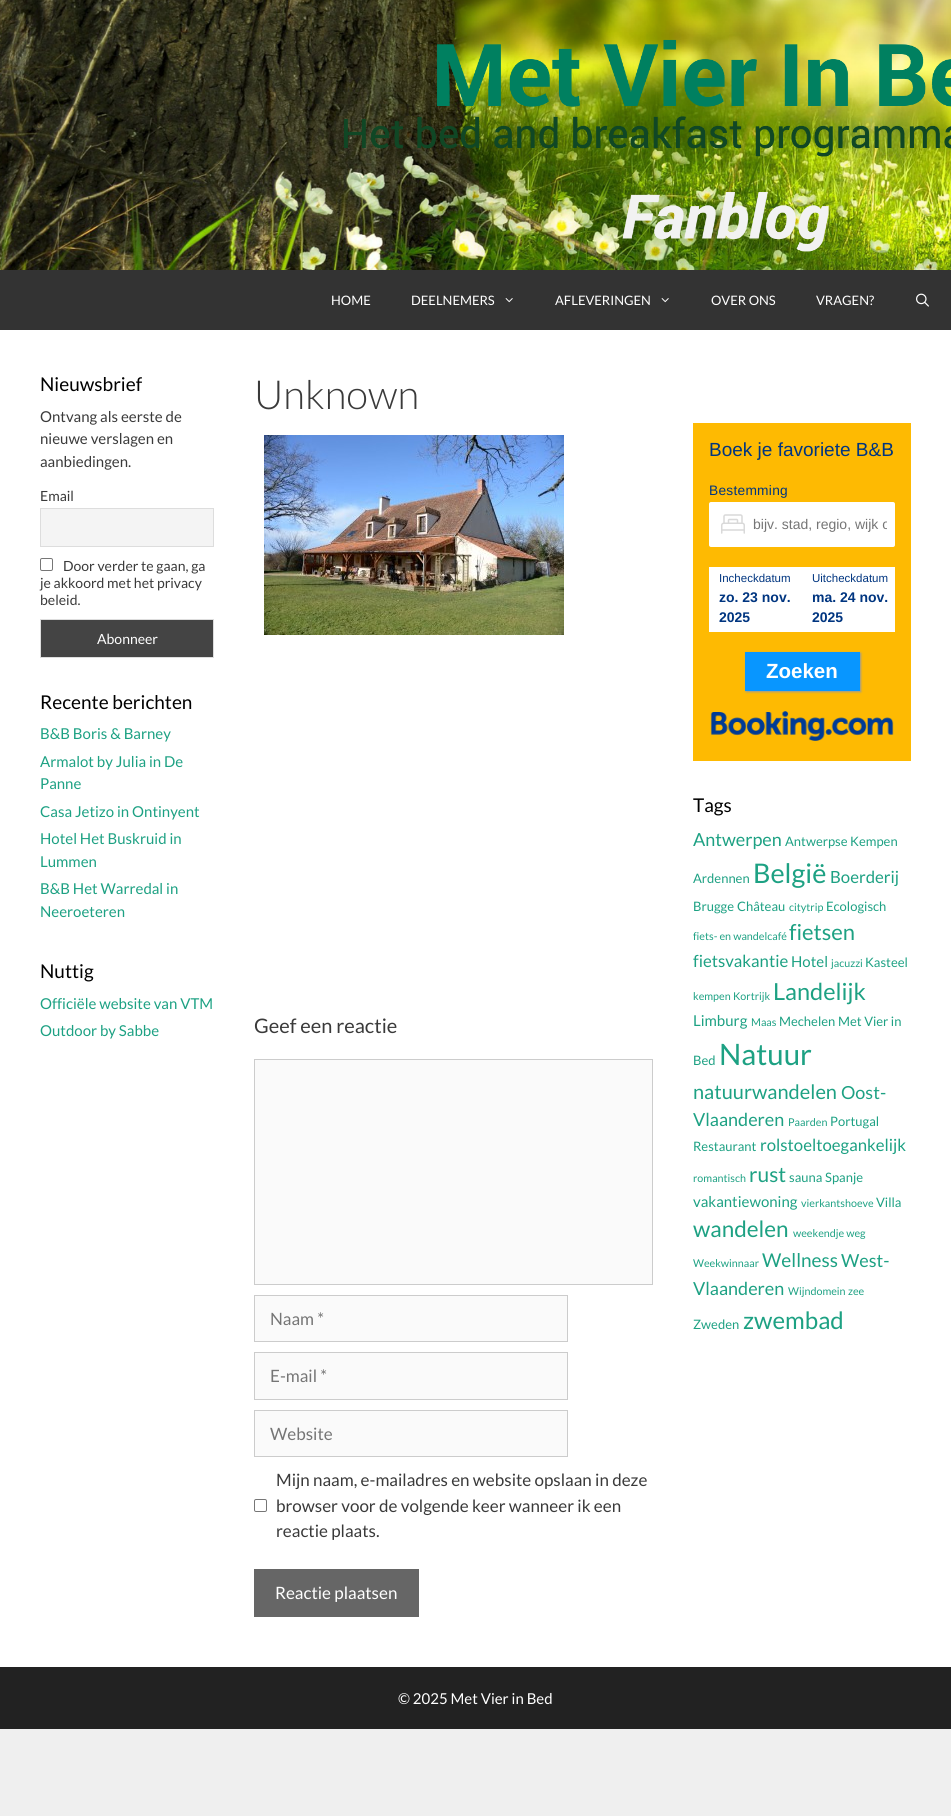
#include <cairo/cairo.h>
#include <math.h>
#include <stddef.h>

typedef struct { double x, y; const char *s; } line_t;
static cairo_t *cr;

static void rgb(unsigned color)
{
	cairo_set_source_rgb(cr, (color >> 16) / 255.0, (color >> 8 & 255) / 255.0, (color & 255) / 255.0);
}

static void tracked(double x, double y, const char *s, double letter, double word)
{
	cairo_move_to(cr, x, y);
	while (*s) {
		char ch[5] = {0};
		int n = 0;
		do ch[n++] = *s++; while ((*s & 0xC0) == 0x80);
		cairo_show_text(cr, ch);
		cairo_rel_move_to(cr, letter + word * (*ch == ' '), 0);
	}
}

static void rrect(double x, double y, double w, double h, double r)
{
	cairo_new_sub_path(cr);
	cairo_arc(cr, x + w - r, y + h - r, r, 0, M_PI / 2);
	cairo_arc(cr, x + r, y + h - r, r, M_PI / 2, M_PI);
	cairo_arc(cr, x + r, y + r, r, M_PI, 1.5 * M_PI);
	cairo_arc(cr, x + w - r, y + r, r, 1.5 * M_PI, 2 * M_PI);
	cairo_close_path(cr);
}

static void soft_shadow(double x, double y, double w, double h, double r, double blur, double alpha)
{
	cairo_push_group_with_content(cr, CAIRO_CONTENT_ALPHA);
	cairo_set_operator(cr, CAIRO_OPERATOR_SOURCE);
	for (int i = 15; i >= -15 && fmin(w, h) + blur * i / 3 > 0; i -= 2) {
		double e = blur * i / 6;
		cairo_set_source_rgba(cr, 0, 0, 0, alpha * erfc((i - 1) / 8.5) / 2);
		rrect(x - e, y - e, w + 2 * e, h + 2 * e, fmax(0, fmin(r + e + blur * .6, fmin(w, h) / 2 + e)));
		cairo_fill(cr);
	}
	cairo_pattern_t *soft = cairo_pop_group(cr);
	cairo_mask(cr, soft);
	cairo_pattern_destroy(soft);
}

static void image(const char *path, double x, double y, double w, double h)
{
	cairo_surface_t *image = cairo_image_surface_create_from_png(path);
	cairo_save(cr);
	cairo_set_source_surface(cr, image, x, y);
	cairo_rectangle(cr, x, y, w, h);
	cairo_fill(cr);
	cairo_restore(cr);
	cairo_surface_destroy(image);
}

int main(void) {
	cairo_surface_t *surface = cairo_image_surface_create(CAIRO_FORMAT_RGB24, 951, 1816);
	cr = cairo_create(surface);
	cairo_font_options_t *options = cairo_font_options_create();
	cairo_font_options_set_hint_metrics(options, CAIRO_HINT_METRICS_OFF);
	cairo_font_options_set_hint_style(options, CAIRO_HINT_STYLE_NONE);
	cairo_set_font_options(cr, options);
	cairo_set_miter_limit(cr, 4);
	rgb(0xefefef);
	cairo_paint(cr);
	image("img/1.png", 0, 0, 951, 270);
	rgb(0x333333);
	cairo_rectangle(cr, 0, 270, 951, 60);
	cairo_fill(cr);
	image("img/2.png", 505, 298, 8, 5);
	image("img/2.png", 661, 298, 8, 5);
	image("img/3.png", 916, 293, 13, 14);
	rgb(0xffffff);
	cairo_rectangle(cr, 0, 330, 951, 1337);
	cairo_fill(cr);
	rgb(0xf4f4f4);
	cairo_rectangle(cr, 40.5, 508.5, 173, 38);
	cairo_fill_preserve(cr);
	rgb(0xdddddd);
	cairo_set_line_width(cr, 1);
	cairo_stroke(cr);
	rrect(40.5, 558.5, 12, 12, 1.5);
	rgb(0x767676);
	cairo_stroke(cr);
	rgb(0x444444);
	cairo_rectangle(cr, 40.5, 619.5, 173, 38);
	cairo_fill_preserve(cr);
	rgb(0xdddddd);
	cairo_stroke(cr);
	image("img/4.png", 264, 435, 300, 200);
	rgb(0xfafafa);
	cairo_rectangle(cr, 254.5, 1059.5, 398, 225);
	cairo_fill_preserve(cr);
	rgb(0xcccccc);
	cairo_stroke(cr);
	rgb(0xfafafa);
	cairo_rectangle(cr, 254.5, 1295.5, 313, 46);
	cairo_fill_preserve(cr);
	rgb(0xcccccc);
	cairo_stroke(cr);
	rgb(0xfafafa);
	cairo_rectangle(cr, 254.5, 1352.5, 313, 47);
	cairo_fill_preserve(cr);
	rgb(0xcccccc);
	cairo_stroke(cr);
	rgb(0xfafafa);
	cairo_rectangle(cr, 254.5, 1410.5, 313, 46);
	cairo_fill_preserve(cr);
	rgb(0xcccccc);
	cairo_stroke(cr);
	rrect(254.5, 1499.5, 12, 12, 1.5);
	rgb(0x767676);
	cairo_stroke(cr);
	rgb(0x666666);
	cairo_rectangle(cr, 254, 1569, 165, 48);
	cairo_fill(cr);
	rgb(0xfeba02);
	cairo_rectangle(cr, 693, 423, 218, 338);
	cairo_fill(cr);
	rgb(0xffffff);
	rrect(709, 502, 186, 45, 2);
	cairo_fill(cr);
	image("img/5.png", 721, 514, 24, 20);
	cairo_rectangle(cr, 709, 567, 186, 65);
	cairo_fill(cr);
	rgb(0x999999);
	soft_shadow(746, 653, 115, 39, 0, 1, 1);
	rgb(0x0896ff);
	cairo_rectangle(cr, 745, 652, 115, 39);
	cairo_fill(cr);
	image("img/6.png", 710, 711, 184, 30);
	rgb(0x222222);
	cairo_rectangle(cr, 0, 1667, 951, 62);
	cairo_fill(cr);
	cairo_select_font_face(cr, "Lato", CAIRO_FONT_SLANT_NORMAL, CAIRO_FONT_WEIGHT_NORMAL);
	cairo_set_font_size(cr, 13);
	rgb(0xffffff);
	{
		static const line_t items[] = {
			{331, 305, "HOME"},
			{411, 305, "DEELNEMERS"},
			{555, 305, "AFLEVERINGEN"},
			{711, 305, "OVER ONS"},
			{816, 305, "VRAGEN?"},
		};
		for (size_t i = 0; i < sizeof items / sizeof *items; i++) {
			cairo_move_to(cr, items[i].x, items[i].y);
			cairo_show_text(cr, items[i].s);
		}
	}
	cairo_set_font_size(cr, 19);
	rgb(0x000000);
	cairo_move_to(cr, 40, 391);
	cairo_show_text(cr, "Nieuwsbrief");
	cairo_set_font_size(cr, 15);
	rgb(0x3a3a3a);
	{
		static const line_t items[] = {
			{40, 422, "Ontvang als eerste de"},
			{40, 444, "nieuwe verslagen en"},
			{40, 467, "aanbiedingen."},
		};
		for (size_t i = 0; i < sizeof items / sizeof *items; i++) {
			cairo_move_to(cr, items[i].x, items[i].y);
			cairo_show_text(cr, items[i].s);
		}
	}
	cairo_set_font_size(cr, 14);
	{
		static const line_t items[] = {
			{40, 501, "Email"},
			{63, 571, "Door verder te gaan, ga"},
			{40, 588, "je akkoord met het privacy"},
			{40, 605, "beleid."},
		};
		for (size_t i = 0; i < sizeof items / sizeof *items; i++) {
			cairo_move_to(cr, items[i].x, items[i].y);
			cairo_show_text(cr, items[i].s);
		}
	}
	rgb(0xffffff);
	cairo_move_to(cr, 97, 644);
	cairo_show_text(cr, "Abonneer");
	cairo_set_font_size(cr, 19);
	rgb(0x000000);
	cairo_move_to(cr, 40, 709);
	cairo_show_text(cr, "Recente berichten");
	cairo_set_font_size(cr, 15);
	rgb(0x1da183);
	{
		static const line_t items[] = {
			{40, 739, "B&B Boris & Barney"},
			{40, 767, "Armalot by Julia in De"},
			{40, 789, "Panne"},
			{40, 817, "Casa Jetizo in Ontinyent"},
			{40, 844, "Hotel Het Buskruid in"},
			{40, 867, "Lummen"},
			{40, 894, "B&B Het Warredal in"},
			{40, 917, "Neeroeteren"},
		};
		for (size_t i = 0; i < sizeof items / sizeof *items; i++) {
			cairo_move_to(cr, items[i].x, items[i].y);
			cairo_show_text(cr, items[i].s);
		}
	}
	cairo_set_font_size(cr, 19);
	rgb(0x000000);
	cairo_move_to(cr, 40, 978);
	cairo_show_text(cr, "Nuttig");
	cairo_set_font_size(cr, 15);
	rgb(0x1da183);
	cairo_move_to(cr, 40, 1009);
	cairo_show_text(cr, "Officiële website van VTM");
	cairo_move_to(cr, 40, 1036);
	cairo_show_text(cr, "Outdoor by Sabbe");
	cairo_select_font_face(cr, "Lato Light", CAIRO_FONT_SLANT_NORMAL, CAIRO_FONT_WEIGHT_NORMAL);
	cairo_set_font_size(cr, 40);
	rgb(0x3a3a3a);
	cairo_move_to(cr, 254, 409);
	cairo_show_text(cr, "Unknown");
	cairo_select_font_face(cr, "Lato", CAIRO_FONT_SLANT_NORMAL, CAIRO_FONT_WEIGHT_NORMAL);
	cairo_set_font_size(cr, 20);
	cairo_move_to(cr, 254, 1033);
	cairo_show_text(cr, "Geef een reactie");
	cairo_set_font_size(cr, 17);
	rgb(0x757575);
	{
		static const line_t items[] = {
			{270, 1325, "Naam *"},
			{270, 1382, "E-mail *"},
			{270, 1440, "Website"},
		};
		for (size_t i = 0; i < sizeof items / sizeof *items; i++) {
			cairo_move_to(cr, items[i].x, items[i].y);
			cairo_show_text(cr, items[i].s);
		}
	}
	rgb(0x3a3a3a);
	{
		static const line_t items[] = {
			{276, 1486, "Mijn naam, e-mailadres en website opslaan in deze"},
			{276, 1512, "browser voor de volgende keer wanneer ik een"},
			{276, 1537, "reactie plaats."},
		};
		for (size_t i = 0; i < sizeof items / sizeof *items; i++) {
			cairo_move_to(cr, items[i].x, items[i].y);
			cairo_show_text(cr, items[i].s);
		}
	}
	rgb(0xffffff);
	cairo_move_to(cr, 275, 1599);
	cairo_show_text(cr, "Reactie plaatsen");
	cairo_select_font_face(cr, "Liberation Sans", CAIRO_FONT_SLANT_NORMAL, CAIRO_FONT_WEIGHT_NORMAL);
	cairo_set_font_size(cr, 19);
	rgb(0x003580);
	cairo_move_to(cr, 709, 456);
	cairo_show_text(cr, "Boek je favoriete B&B");
	cairo_set_font_size(cr, 13.75);
	tracked(709, 495, "Bestemming", 0.25, 0);
	cairo_save(cr);
	cairo_rectangle(cr, 717, 516, 170, 16);
	cairo_clip(cr);
	cairo_set_font_size(cr, 14);
	rgb(0x757575);
	cairo_move_to(cr, 753, 529);
	cairo_show_text(cr, "bijv. stad, regio, wijk o");
	cairo_restore(cr);
	cairo_set_font_size(cr, 11.5);
	cairo_move_to(cr, 719, 582);
	cairo_show_text(cr, "Incheckdatum");
	cairo_select_font_face(cr, "Liberation Sans", CAIRO_FONT_SLANT_NORMAL, CAIRO_FONT_WEIGHT_BOLD);
	cairo_set_font_size(cr, 14);
	cairo_move_to(cr, 719, 602);
	cairo_show_text(cr, "zo. 23 nov.");
	cairo_move_to(cr, 719, 622);
	cairo_show_text(cr, "2025");
	cairo_select_font_face(cr, "Liberation Sans", CAIRO_FONT_SLANT_NORMAL, CAIRO_FONT_WEIGHT_NORMAL);
	cairo_set_font_size(cr, 11.5);
	cairo_move_to(cr, 812, 582);
	cairo_show_text(cr, "Uitcheckdatum");
	cairo_select_font_face(cr, "Liberation Sans", CAIRO_FONT_SLANT_NORMAL, CAIRO_FONT_WEIGHT_BOLD);
	cairo_set_font_size(cr, 14);
	cairo_move_to(cr, 812, 602);
	cairo_show_text(cr, "ma. 24 nov.");
	cairo_move_to(cr, 812, 622);
	cairo_show_text(cr, "2025");
	cairo_set_font_size(cr, 20.5);
	rgb(0xffffff);
	cairo_move_to(cr, 766, 678);
	cairo_show_text(cr, "Zoeken");
	cairo_select_font_face(cr, "Lato", CAIRO_FONT_SLANT_NORMAL, CAIRO_FONT_WEIGHT_NORMAL);
	cairo_set_font_size(cr, 19);
	rgb(0x000000);
	cairo_move_to(cr, 693, 812);
	cairo_show_text(cr, "Tags");
	cairo_set_font_size(cr, 18);
	rgb(0x1da183);
	cairo_move_to(cr, 693, 846);
	cairo_show_text(cr, "Antwerpen");
	cairo_set_font_size(cr, 13);
	cairo_move_to(cr, 785, 846);
	cairo_show_text(cr, "Antwerpse Kempen");
	cairo_move_to(cr, 693, 883);
	cairo_show_text(cr, "Ardennen");
	cairo_set_font_size(cr, 27);
	cairo_move_to(cr, 753, 883);
	cairo_show_text(cr, "België");
	cairo_set_font_size(cr, 16.75);
	cairo_move_to(cr, 830, 883);
	cairo_show_text(cr, "Boerderij");
	cairo_set_font_size(cr, 13);
	cairo_move_to(cr, 693, 911);
	cairo_show_text(cr, "Brugge");
	cairo_move_to(cr, 737, 911);
	cairo_show_text(cr, "Château");
	cairo_set_font_size(cr, 10.75);
	cairo_move_to(cr, 789, 911);
	cairo_show_text(cr, "citytrip");
	cairo_set_font_size(cr, 13);
	cairo_move_to(cr, 826, 911);
	cairo_show_text(cr, "Ecologisch");
	cairo_set_font_size(cr, 10.75);
	cairo_move_to(cr, 693, 940);
	cairo_show_text(cr, "fiets- en wandelcafé");
	cairo_set_font_size(cr, 22);
	cairo_move_to(cr, 789, 940);
	cairo_show_text(cr, "fietsen");
	cairo_set_font_size(cr, 16.75);
	cairo_move_to(cr, 693, 967);
	cairo_show_text(cr, "fietsvakantie");
	cairo_set_font_size(cr, 15);
	cairo_move_to(cr, 791, 967);
	cairo_show_text(cr, "Hotel");
	cairo_set_font_size(cr, 10.75);
	cairo_move_to(cr, 831, 967);
	cairo_show_text(cr, "jacuzzi");
	cairo_set_font_size(cr, 13);
	cairo_move_to(cr, 865, 967);
	cairo_show_text(cr, "Kasteel");
	cairo_set_font_size(cr, 10.75);
	cairo_move_to(cr, 693, 1000);
	cairo_show_text(cr, "kempen");
	cairo_move_to(cr, 733, 1000);
	cairo_show_text(cr, "Kortrijk");
	cairo_set_font_size(cr, 23.5);
	cairo_move_to(cr, 773, 1000);
	cairo_show_text(cr, "Landelijk");
	cairo_set_font_size(cr, 15);
	cairo_move_to(cr, 693, 1026);
	cairo_show_text(cr, "Limburg");
	cairo_set_font_size(cr, 10.75);
	cairo_move_to(cr, 751, 1026);
	cairo_show_text(cr, "Maas");
	cairo_set_font_size(cr, 13);
	{
		static const line_t items[] = {
			{779, 1026, "Mechelen"},
			{838, 1026, "Met Vier in"},
			{693, 1065, "Bed"},
		};
		for (size_t i = 0; i < sizeof items / sizeof *items; i++) {
			cairo_move_to(cr, items[i].x, items[i].y);
			cairo_show_text(cr, items[i].s);
		}
	}
	cairo_set_font_size(cr, 29.5);
	cairo_move_to(cr, 719, 1065);
	cairo_show_text(cr, "Natuur");
	cairo_set_font_size(cr, 20);
	cairo_move_to(cr, 693, 1099);
	cairo_show_text(cr, "natuurwandelen");
	cairo_set_font_size(cr, 18);
	cairo_move_to(cr, 841, 1099);
	cairo_show_text(cr, "Oost-");
	cairo_move_to(cr, 693, 1126);
	cairo_show_text(cr, "Vlaanderen");
	cairo_set_font_size(cr, 10.75);
	cairo_move_to(cr, 788, 1126);
	cairo_show_text(cr, "Paarden");
	cairo_set_font_size(cr, 13);
	cairo_move_to(cr, 830, 1126);
	cairo_show_text(cr, "Portugal");
	cairo_move_to(cr, 693, 1151);
	cairo_show_text(cr, "Restaurant");
	cairo_set_font_size(cr, 16.75);
	cairo_move_to(cr, 760, 1151);
	cairo_show_text(cr, "rolstoeltoegankelijk");
	cairo_set_font_size(cr, 10.75);
	cairo_move_to(cr, 693, 1182);
	cairo_show_text(cr, "romantisch");
	cairo_set_font_size(cr, 21);
	cairo_move_to(cr, 749, 1182);
	cairo_show_text(cr, "rust");
	cairo_set_font_size(cr, 13);
	cairo_move_to(cr, 789, 1182);
	cairo_show_text(cr, "sauna");
	cairo_move_to(cr, 825, 1182);
	cairo_show_text(cr, "Spanje");
	cairo_set_font_size(cr, 15);
	cairo_move_to(cr, 693, 1207);
	cairo_show_text(cr, "vakantiewoning");
	cairo_set_font_size(cr, 10.75);
	cairo_move_to(cr, 801, 1207);
	cairo_show_text(cr, "vierkantshoeve");
	cairo_set_font_size(cr, 13);
	cairo_move_to(cr, 876, 1207);
	cairo_show_text(cr, "Villa");
	cairo_set_font_size(cr, 22.5);
	cairo_move_to(cr, 693, 1237);
	cairo_show_text(cr, "wandelen");
	cairo_set_font_size(cr, 10.75);
	cairo_move_to(cr, 793, 1237);
	cairo_show_text(cr, "weekendje weg");
	cairo_move_to(cr, 693, 1267);
	cairo_show_text(cr, "Weekwinnaar");
	cairo_set_font_size(cr, 19);
	cairo_move_to(cr, 762, 1267);
	cairo_show_text(cr, "Wellness");
	cairo_set_font_size(cr, 18);
	cairo_move_to(cr, 841, 1267);
	cairo_show_text(cr, "West-");
	cairo_move_to(cr, 693, 1295);
	cairo_show_text(cr, "Vlaanderen");
	cairo_set_font_size(cr, 10.75);
	cairo_move_to(cr, 788, 1295);
	cairo_show_text(cr, "Wijndomein");
	cairo_move_to(cr, 848, 1295);
	cairo_show_text(cr, "zee");
	cairo_set_font_size(cr, 13);
	cairo_move_to(cr, 693, 1329);
	cairo_show_text(cr, "Zweden");
	cairo_set_font_size(cr, 24);
	cairo_move_to(cr, 743, 1329);
	cairo_show_text(cr, "zwembad");
	cairo_set_font_size(cr, 15);
	rgb(0xffffff);
	cairo_move_to(cr, 398, 1704);
	cairo_show_text(cr, "© 2025 Met Vier in Bed");
	cairo_surface_write_to_png(surface, "page.png");
	cairo_font_options_destroy(options);
	cairo_destroy(cr);
	cairo_surface_destroy(surface);
	return 0;
}
